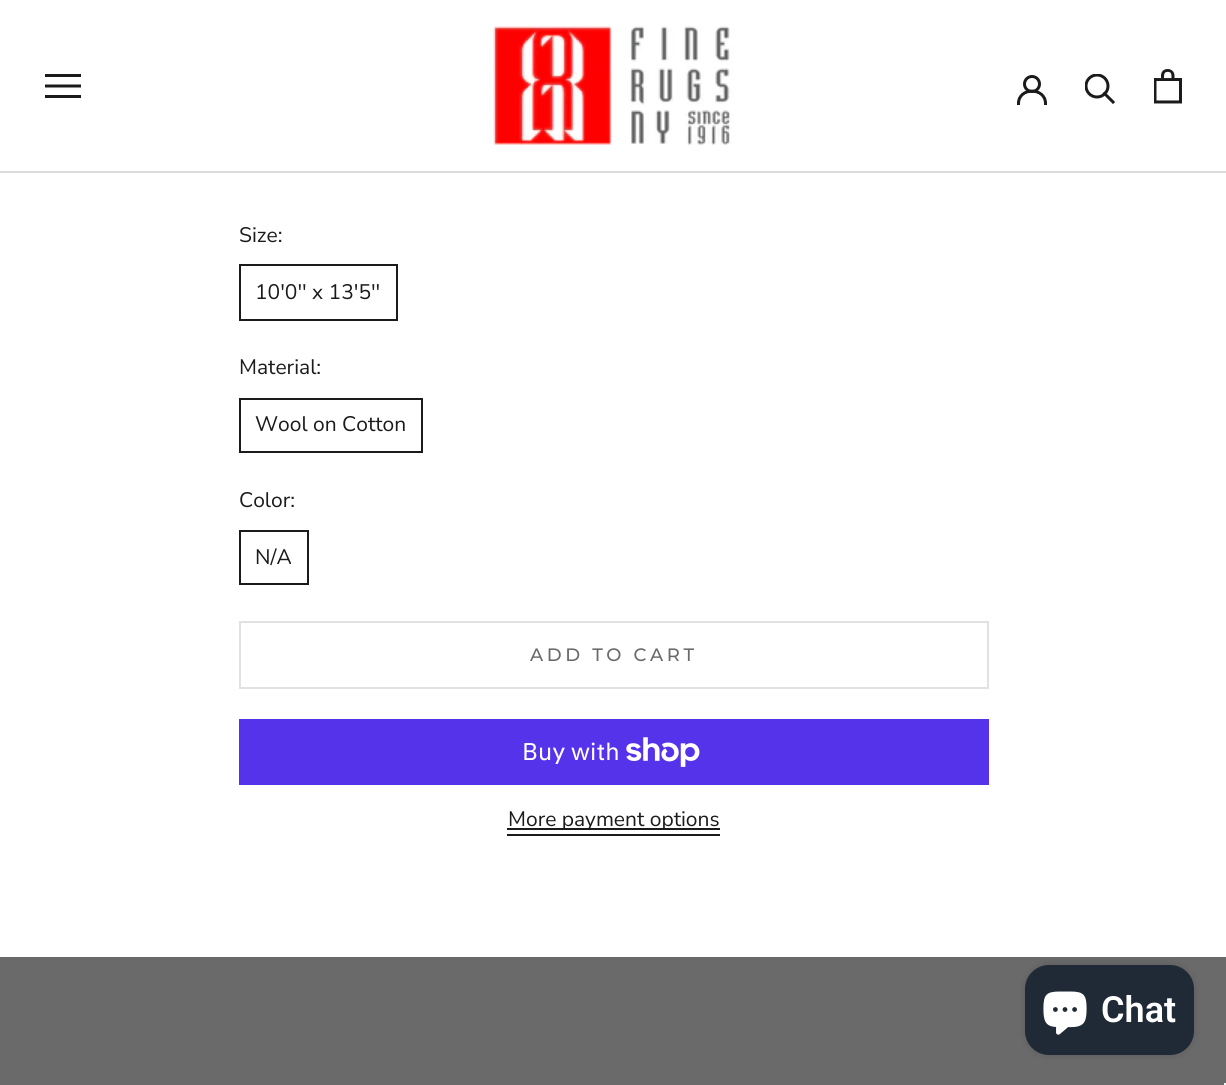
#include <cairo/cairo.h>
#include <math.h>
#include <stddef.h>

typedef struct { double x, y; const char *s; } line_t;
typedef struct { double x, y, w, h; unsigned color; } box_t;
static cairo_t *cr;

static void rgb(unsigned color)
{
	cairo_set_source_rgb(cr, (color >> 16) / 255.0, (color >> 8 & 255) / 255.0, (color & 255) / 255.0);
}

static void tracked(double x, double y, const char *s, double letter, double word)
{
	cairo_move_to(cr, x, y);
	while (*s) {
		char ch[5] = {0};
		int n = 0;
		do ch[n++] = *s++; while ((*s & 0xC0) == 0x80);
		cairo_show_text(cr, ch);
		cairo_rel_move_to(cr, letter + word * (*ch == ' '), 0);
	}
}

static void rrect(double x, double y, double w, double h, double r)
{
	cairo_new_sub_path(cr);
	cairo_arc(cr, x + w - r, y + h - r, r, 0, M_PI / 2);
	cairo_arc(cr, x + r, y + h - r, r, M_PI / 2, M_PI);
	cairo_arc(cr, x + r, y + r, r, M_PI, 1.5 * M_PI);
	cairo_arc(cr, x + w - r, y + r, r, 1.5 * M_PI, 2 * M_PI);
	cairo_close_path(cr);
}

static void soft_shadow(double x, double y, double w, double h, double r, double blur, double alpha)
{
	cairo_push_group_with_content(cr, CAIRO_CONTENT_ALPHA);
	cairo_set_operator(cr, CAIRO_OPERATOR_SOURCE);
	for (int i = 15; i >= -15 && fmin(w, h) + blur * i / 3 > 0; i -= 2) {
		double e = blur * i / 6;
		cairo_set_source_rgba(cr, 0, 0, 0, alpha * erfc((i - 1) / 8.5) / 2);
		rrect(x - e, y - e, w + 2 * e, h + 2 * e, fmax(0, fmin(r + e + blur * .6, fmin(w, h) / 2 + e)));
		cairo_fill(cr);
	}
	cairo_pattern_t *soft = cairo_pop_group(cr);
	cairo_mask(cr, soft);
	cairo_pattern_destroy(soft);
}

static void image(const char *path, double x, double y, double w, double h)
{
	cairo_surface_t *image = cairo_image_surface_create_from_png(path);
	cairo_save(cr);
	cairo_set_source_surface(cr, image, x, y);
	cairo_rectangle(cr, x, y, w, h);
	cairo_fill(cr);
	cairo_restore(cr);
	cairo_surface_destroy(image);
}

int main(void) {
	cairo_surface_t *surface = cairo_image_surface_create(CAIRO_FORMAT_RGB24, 1226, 1085);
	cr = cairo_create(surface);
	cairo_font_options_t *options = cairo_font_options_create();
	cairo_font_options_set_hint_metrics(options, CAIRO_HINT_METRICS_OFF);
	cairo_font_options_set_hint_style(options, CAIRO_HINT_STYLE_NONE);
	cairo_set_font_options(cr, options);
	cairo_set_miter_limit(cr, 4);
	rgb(0xffffff);
	cairo_paint(cr);
	rgb(0xdddddd);
	cairo_rectangle(cr, 0, 171, 1226, 2);
	cairo_fill(cr);
	rgb(0x1c1b1b);
	cairo_new_path(cr);
	cairo_move_to(cr, 45, 98);
	cairo_line_to(cr, 45, 95);
	cairo_line_to(cr, 81, 95);
	cairo_line_to(cr, 81, 98);
	cairo_close_path(cr);
	cairo_move_to(cr, 45, 84.5);
	cairo_line_to(cr, 81, 84.5);
	cairo_line_to(cr, 81, 87.5);
	cairo_line_to(cr, 45, 87.5);
	cairo_close_path(cr);
	cairo_move_to(cr, 45, 74);
	cairo_line_to(cr, 81, 74);
	cairo_line_to(cr, 81, 77);
	cairo_line_to(cr, 45, 77);
	cairo_close_path(cr);
	cairo_fill(cr);
	image("img/1.png", 493, 26, 241, 119);
	cairo_new_path(cr);
	cairo_move_to(cr, 1018.5, 103.5);
	cairo_curve_to(cr, 1018.5, 87, 1045.5, 87, 1045.5, 103.5);
	cairo_set_line_width(cr, 3);
	cairo_set_line_cap(cr, CAIRO_LINE_CAP_SQUARE);
	cairo_stroke(cr);
	cairo_arc(cr, 1032, 84, 7.5, 0, 2 * M_PI);
	cairo_set_line_cap(cr, CAIRO_LINE_CAP_BUTT);
	cairo_stroke(cr);
	cairo_new_path(cr);
	cairo_move_to(cr, 1113, 102);
	cairo_line_to(cr, 1104.5, 93.5);
	cairo_set_line_cap(cr, CAIRO_LINE_CAP_SQUARE);
	cairo_stroke(cr);
	cairo_save(cr);
	cairo_rectangle(cr, 1085, 74, 31, 31);
	cairo_clip(cr);
	cairo_arc(cr, 1097, 86, 11, 0, 2 * M_PI);
	cairo_set_line_cap(cr, CAIRO_LINE_CAP_BUTT);
	cairo_stroke(cr);
	cairo_restore(cr);
	image("img/2.png", 1154, 69, 28, 35);
	cairo_rectangle(cr, 240, 265, 157, 55);
	cairo_set_line_width(cr, 2);
	cairo_set_line_cap(cr, CAIRO_LINE_CAP_BUTT);
	cairo_stroke(cr);
	cairo_rectangle(cr, 240, 399, 182, 53);
	cairo_stroke(cr);
	cairo_rectangle(cr, 240, 531, 68, 53);
	cairo_stroke(cr);
	cairo_rectangle(cr, 240, 622, 748, 66);
	rgb(0xe1e1e1);
	cairo_stroke(cr);
	rgb(0x5433eb);
	cairo_rectangle(cr, 239, 719, 750, 66);
	cairo_fill(cr);
	image("img/3.png", 626, 737, 74, 30);
	{
		static const box_t items[] = {
			{507, 828, 213, 2, 0x1c1b1b},
			{507, 834, 213, 2, 0x1c1b1b},
			{0, 957, 1226, 128, 0x6a6a6a},
		};
		for (size_t i = 0; i < sizeof items / sizeof *items; i++) {
			rgb(items[i].color);
			cairo_rectangle(cr, items[i].x, items[i].y, items[i].w, items[i].h);
			cairo_fill(cr);
		}
	}
	rgb(0x000000);
	soft_shadow(1025, 965, 169, 90, 24, 4, 0.15);
	rgb(0x202a36);
	rrect(1025, 965, 169, 90, 24);
	cairo_fill(cr);
	image("img/4.png", 1043, 991, 44, 44);
	rgb(0xf5f5f5);
	cairo_rectangle(cr, 1224, 1083, 2, 2);
	cairo_fill(cr);
	cairo_select_font_face(cr, "Nunito Sans", CAIRO_FONT_SLANT_NORMAL, CAIRO_FONT_WEIGHT_NORMAL);
	cairo_set_font_size(cr, 21);
	rgb(0x1c1b1b);
	{
		static const line_t items[] = {
			{239, 242, "Size:"},
			{255, 299, "10'0'' x 13'5''"},
			{239, 374, "Material:"},
			{255, 431, "Wool on Cotton"},
			{239, 507, "Color:"},
			{255, 564, "N/A"},
		};
		for (size_t i = 0; i < sizeof items / sizeof *items; i++) {
			cairo_move_to(cr, items[i].x, items[i].y);
			cairo_show_text(cr, items[i].s);
		}
	}
	cairo_select_font_face(cr, "Montserrat Medium", CAIRO_FONT_SLANT_NORMAL, CAIRO_FONT_WEIGHT_NORMAL);
	cairo_set_font_size(cr, 18);
	rgb(0x6a6a6a);
	tracked(530, 661, "ADD TO CART", 3.6, 0);
	cairo_select_font_face(cr, "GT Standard", CAIRO_FONT_SLANT_NORMAL, CAIRO_FONT_WEIGHT_NORMAL);
	cairo_set_font_size(cr, 24);
	rgb(0xffffff);
	cairo_move_to(cr, 522, 760);
	cairo_show_text(cr, "Buy with");
	cairo_select_font_face(cr, "Nunito Sans", CAIRO_FONT_SLANT_NORMAL, CAIRO_FONT_WEIGHT_NORMAL);
	cairo_set_font_size(cr, 21);
	rgb(0x1c1b1b);
	cairo_move_to(cr, 508, 826);
	cairo_show_text(cr, "More payment options");
	cairo_select_font_face(cr, "Roboto SemiBold", CAIRO_FONT_SLANT_NORMAL, CAIRO_FONT_WEIGHT_NORMAL);
	cairo_set_font_size(cr, 36);
	rgb(0xffffff);
	cairo_move_to(cr, 1101, 1022);
	cairo_show_text(cr, "Chat");
	cairo_surface_write_to_png(surface, "page.png");
	cairo_font_options_destroy(options);
	cairo_destroy(cr);
	cairo_surface_destroy(surface);
	return 0;
}
